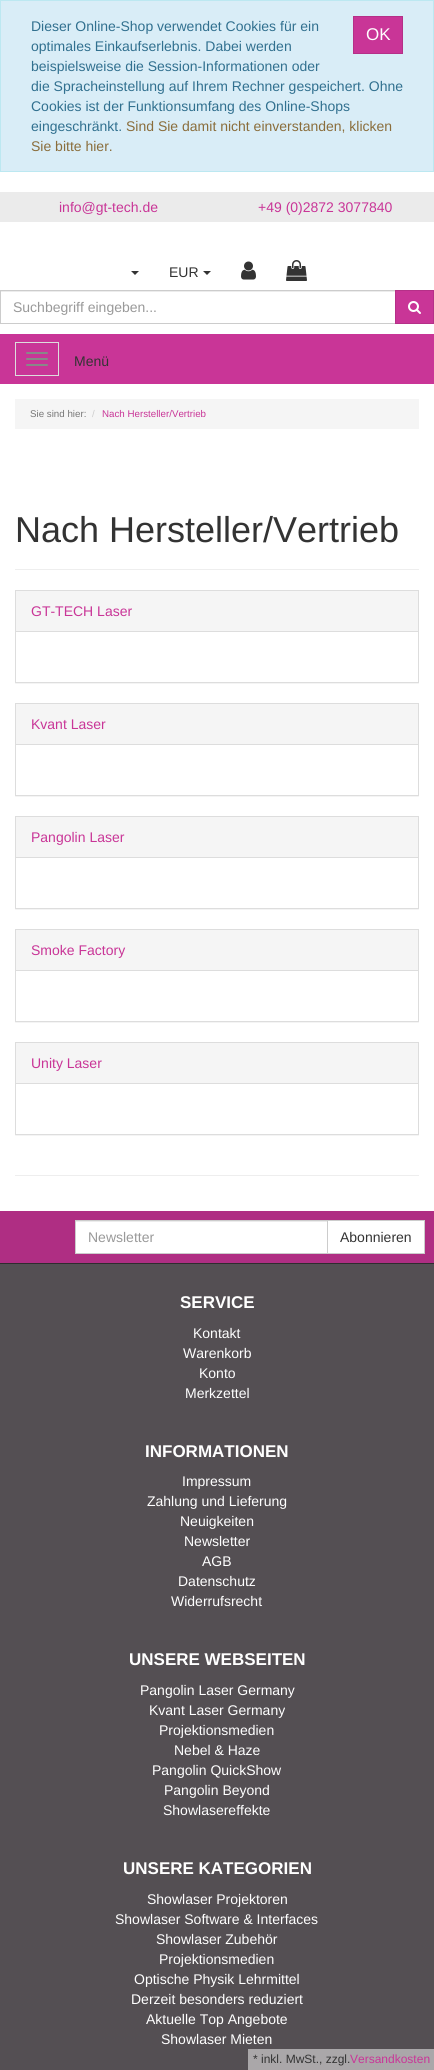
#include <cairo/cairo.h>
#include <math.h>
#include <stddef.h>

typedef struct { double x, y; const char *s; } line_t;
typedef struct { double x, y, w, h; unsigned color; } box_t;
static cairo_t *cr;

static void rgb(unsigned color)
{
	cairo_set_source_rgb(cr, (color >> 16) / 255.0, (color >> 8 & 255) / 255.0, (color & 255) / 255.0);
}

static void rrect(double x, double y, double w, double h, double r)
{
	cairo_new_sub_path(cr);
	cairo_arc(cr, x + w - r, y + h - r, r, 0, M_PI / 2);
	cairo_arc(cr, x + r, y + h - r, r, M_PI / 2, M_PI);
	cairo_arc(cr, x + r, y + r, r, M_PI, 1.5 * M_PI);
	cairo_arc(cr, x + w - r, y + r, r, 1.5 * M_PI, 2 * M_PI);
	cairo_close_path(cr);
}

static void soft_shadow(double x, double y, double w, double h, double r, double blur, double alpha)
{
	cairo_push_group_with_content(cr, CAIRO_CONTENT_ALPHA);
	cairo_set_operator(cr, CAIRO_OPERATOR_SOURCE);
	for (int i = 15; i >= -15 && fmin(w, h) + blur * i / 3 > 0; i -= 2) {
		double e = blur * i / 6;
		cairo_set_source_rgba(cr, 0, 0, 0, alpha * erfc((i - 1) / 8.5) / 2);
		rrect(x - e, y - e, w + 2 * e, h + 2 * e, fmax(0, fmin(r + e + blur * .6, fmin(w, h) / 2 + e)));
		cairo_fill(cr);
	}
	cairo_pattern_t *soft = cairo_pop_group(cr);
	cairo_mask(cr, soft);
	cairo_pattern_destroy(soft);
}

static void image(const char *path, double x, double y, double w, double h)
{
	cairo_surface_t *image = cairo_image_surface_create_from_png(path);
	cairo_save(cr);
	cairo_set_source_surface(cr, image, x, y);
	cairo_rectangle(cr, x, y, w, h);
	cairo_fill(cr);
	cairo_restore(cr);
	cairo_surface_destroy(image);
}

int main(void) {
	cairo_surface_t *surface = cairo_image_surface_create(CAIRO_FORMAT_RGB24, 434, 2070);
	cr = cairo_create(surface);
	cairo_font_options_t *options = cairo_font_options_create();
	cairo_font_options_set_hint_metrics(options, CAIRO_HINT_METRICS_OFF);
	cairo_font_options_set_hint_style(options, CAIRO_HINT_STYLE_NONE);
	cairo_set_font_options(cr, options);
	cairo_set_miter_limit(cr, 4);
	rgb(0xffffff);
	cairo_paint(cr);
	rgb(0xd9edf7);
	cairo_rectangle(cr, 0.5, 0.5, 433, 171);
	cairo_fill_preserve(cr);
	rgb(0xbce8f1);
	cairo_set_line_width(cr, 1);
	cairo_stroke(cr);
	rgb(0xc93597);
	cairo_rectangle(cr, 353.5, 16.5, 49, 37);
	cairo_fill_preserve(cr);
	rgb(0xb53088);
	cairo_stroke(cr);
	rgb(0xebebeb);
	cairo_rectangle(cr, 0, 192, 434, 30);
	cairo_fill(cr);
	rgb(0x333333);
	cairo_new_path(cr);
	cairo_move_to(cr, 131, 271);
	cairo_line_to(cr, 139, 271);
	cairo_line_to(cr, 135, 275);
	cairo_close_path(cr);
	cairo_fill(cr);
	cairo_new_path(cr);
	cairo_move_to(cr, 203, 271);
	cairo_line_to(cr, 211, 271);
	cairo_line_to(cr, 207, 275);
	cairo_close_path(cr);
	cairo_fill(cr);
	image("img/1.png", 241, 261, 15, 19);
	image("img/2.png", 286, 260, 21, 21);
	rgb(0xececec);
	cairo_rectangle(cr, 1, 291, 394, 1);
	cairo_fill(cr);
	cairo_rectangle(cr, 0.5, 290.5, 395, 33);
	rgb(0xcccccc);
	cairo_stroke(cr);
	rgb(0xc93597);
	cairo_rectangle(cr, 395.5, 290.5, 38, 33);
	cairo_fill_preserve(cr);
	rgb(0xb53088);
	cairo_stroke(cr);
	image("img/3.png", 408, 301, 13, 13);
	rgb(0xc93597);
	cairo_rectangle(cr, 0, 334, 434, 50);
	cairo_fill(cr);
	cairo_rectangle(cr, 15.5, 342.5, 43, 33);
	rgb(0xdddddd);
	cairo_stroke(cr);
	rgb(0x888888);
	rrect(26, 352, 22, 2, 1);
	cairo_fill(cr);
	rrect(26, 358, 22, 2, 1);
	cairo_fill(cr);
	rrect(26, 364, 22, 2, 1);
	cairo_fill(cr);
	rgb(0xf5f5f5);
	cairo_rectangle(cr, 15, 399, 404, 30);
	cairo_fill(cr);
	rgb(0xeeeeee);
	cairo_rectangle(cr, 15, 569, 404, 1);
	cairo_fill(cr);
	cairo_save(cr);
	cairo_rectangle(cr, 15, 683, 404, 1);
	cairo_clip(cr);
	rgb(0x000000);
	soft_shadow(15, 591, 404, 93, 0, 0.5, 0.05);
	cairo_restore(cr);
	cairo_rectangle(cr, 15.5, 590.5, 403, 92);
	rgb(0xdddddd);
	cairo_stroke(cr);
	rgb(0xf5f5f5);
	cairo_rectangle(cr, 16, 591, 402, 40);
	cairo_fill(cr);
	rgb(0xdddddd);
	cairo_rectangle(cr, 16, 631, 402, 1);
	cairo_fill(cr);
	cairo_save(cr);
	cairo_rectangle(cr, 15, 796, 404, 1);
	cairo_clip(cr);
	rgb(0x000000);
	soft_shadow(15, 704, 404, 93, 0, 0.5, 0.05);
	cairo_restore(cr);
	cairo_rectangle(cr, 15.5, 703.5, 403, 92);
	cairo_stroke(cr);
	rgb(0xf5f5f5);
	cairo_rectangle(cr, 16, 704, 402, 40);
	cairo_fill(cr);
	rgb(0xdddddd);
	cairo_rectangle(cr, 16, 744, 402, 1);
	cairo_fill(cr);
	cairo_save(cr);
	cairo_rectangle(cr, 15, 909, 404, 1);
	cairo_clip(cr);
	rgb(0x000000);
	soft_shadow(15, 817, 404, 93, 0, 0.5, 0.05);
	cairo_restore(cr);
	cairo_rectangle(cr, 15.5, 816.5, 403, 92);
	cairo_stroke(cr);
	rgb(0xf5f5f5);
	cairo_rectangle(cr, 16, 817, 402, 40);
	cairo_fill(cr);
	rgb(0xdddddd);
	cairo_rectangle(cr, 16, 857, 402, 1);
	cairo_fill(cr);
	cairo_save(cr);
	cairo_rectangle(cr, 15, 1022, 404, 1);
	cairo_clip(cr);
	rgb(0x000000);
	soft_shadow(15, 930, 404, 93, 0, 0.5, 0.05);
	cairo_restore(cr);
	cairo_rectangle(cr, 15.5, 929.5, 403, 92);
	cairo_stroke(cr);
	rgb(0xf5f5f5);
	cairo_rectangle(cr, 16, 930, 402, 40);
	cairo_fill(cr);
	rgb(0xdddddd);
	cairo_rectangle(cr, 16, 970, 402, 1);
	cairo_fill(cr);
	cairo_save(cr);
	cairo_rectangle(cr, 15, 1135, 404, 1);
	cairo_clip(cr);
	rgb(0x000000);
	soft_shadow(15, 1043, 404, 93, 0, 0.5, 0.05);
	cairo_restore(cr);
	cairo_rectangle(cr, 15.5, 1042.5, 403, 92);
	cairo_stroke(cr);
	{
		static const box_t items[] = {
			{16, 1043, 402, 40, 0xf5f5f5},
			{16, 1083, 402, 1, 0xdddddd},
			{15, 1175, 404, 1, 0xeeeeee},
			{0, 1264, 434, 806, 0x544f53},
			{0, 1211, 434, 52, 0xaf2e83},
			{0, 1263, 434, 1, 0x2f2c2f},
			{76, 1222, 251, 31, 0xffffff},
			{76, 1221, 251, 1, 0xececec},
		};
		for (size_t i = 0; i < sizeof items / sizeof *items; i++) {
			rgb(items[i].color);
			cairo_rectangle(cr, items[i].x, items[i].y, items[i].w, items[i].h);
			cairo_fill(cr);
		}
	}
	cairo_rectangle(cr, 75.5, 1220.5, 252, 33);
	rgb(0xcccccc);
	cairo_stroke(cr);
	rgb(0xffffff);
	cairo_rectangle(cr, 327.5, 1220.5, 97, 33);
	cairo_fill_preserve(cr);
	rgb(0xcccccc);
	cairo_stroke(cr);
	rgb(0xaaa7a9);
	cairo_rectangle(cr, 248, 2049, 186, 21);
	cairo_fill(cr);
	cairo_select_font_face(cr, "Liberation Sans", CAIRO_FONT_SLANT_NORMAL, CAIRO_FONT_WEIGHT_NORMAL);
	cairo_set_font_size(cr, 14);
	rgb(0x31708f);
	cairo_move_to(cr, 31, 31);
	cairo_show_text(cr, "Dieser Online-Shop verwendet Cookies für ein");
	cairo_set_font_size(cr, 17);
	rgb(0xffffff);
	cairo_move_to(cr, 366, 40);
	cairo_show_text(cr, "OK");
	cairo_set_font_size(cr, 14);
	rgb(0x31708f);
	{
		static const line_t items[] = {
			{31, 51, "optimales Einkaufserlebnis. Dabei werden"},
			{31, 71, "beispielsweise die Session-Informationen oder"},
			{31, 91, "die Spracheinstellung auf Ihrem Rechner gespeichert. Ohne"},
			{31, 111, "Cookies ist der Funktionsumfang des Online-Shops"},
			{31, 131, "eingeschränkt."},
		};
		for (size_t i = 0; i < sizeof items / sizeof *items; i++) {
			cairo_move_to(cr, items[i].x, items[i].y);
			cairo_show_text(cr, items[i].s);
		}
	}
	rgb(0x8a6d3b);
	cairo_move_to(cr, 126, 131);
	cairo_show_text(cr, "Sind Sie damit nicht einverstanden, klicken");
	cairo_move_to(cr, 31, 151);
	cairo_show_text(cr, "Sie bitte hier.");
	rgb(0xc93597);
	cairo_move_to(cr, 59, 212);
	cairo_show_text(cr, "info@gt-tech.de");
	cairo_move_to(cr, 258, 212);
	cairo_show_text(cr, "+49 (0)2872 3077840");
	rgb(0x333333);
	cairo_move_to(cr, 169, 277);
	cairo_show_text(cr, "EUR");
	rgb(0x999999);
	cairo_move_to(cr, 13, 312);
	cairo_show_text(cr, "Suchbegriff eingeben...");
	rgb(0x333333);
	cairo_move_to(cr, 74, 366);
	cairo_show_text(cr, "Menü");
	cairo_set_font_size(cr, 9.75);
	rgb(0x777777);
	cairo_move_to(cr, 30, 417);
	cairo_show_text(cr, "Sie sind hier:");
	rgb(0xcccccc);
	cairo_move_to(cr, 92, 417);
	cairo_show_text(cr, "/");
	rgb(0xc93597);
	cairo_move_to(cr, 102, 417);
	cairo_show_text(cr, "Nach Hersteller/Vertrieb");
	cairo_set_font_size(cr, 36);
	rgb(0x333333);
	cairo_move_to(cr, 15, 542);
	cairo_show_text(cr, "Nach Hersteller/Vertrieb");
	cairo_set_font_size(cr, 14);
	rgb(0xc93597);
	{
		static const line_t items[] = {
			{31, 616, "GT-TECH Laser"},
			{31, 729, "Kvant Laser"},
			{31, 842, "Pangolin Laser"},
			{31, 955, "Smoke Factory"},
			{31, 1068, "Unity Laser"},
		};
		for (size_t i = 0; i < sizeof items / sizeof *items; i++) {
			cairo_move_to(cr, items[i].x, items[i].y);
			cairo_show_text(cr, items[i].s);
		}
	}
	rgb(0x999999);
	cairo_move_to(cr, 88, 1242);
	cairo_show_text(cr, "Newsletter");
	rgb(0x333333);
	cairo_move_to(cr, 340, 1242);
	cairo_show_text(cr, "Abonnieren");
	cairo_select_font_face(cr, "Liberation Sans", CAIRO_FONT_SLANT_NORMAL, CAIRO_FONT_WEIGHT_BOLD);
	cairo_set_font_size(cr, 17);
	rgb(0xffffff);
	cairo_move_to(cr, 180, 1308);
	cairo_show_text(cr, "SERVICE");
	cairo_select_font_face(cr, "Liberation Sans", CAIRO_FONT_SLANT_NORMAL, CAIRO_FONT_WEIGHT_NORMAL);
	cairo_set_font_size(cr, 14);
	{
		static const line_t items[] = {
			{193, 1338, "Kontakt"},
			{183, 1358, "Warenkorb"},
			{199, 1378, "Konto"},
			{185, 1398, "Merkzettel"},
		};
		for (size_t i = 0; i < sizeof items / sizeof *items; i++) {
			cairo_move_to(cr, items[i].x, items[i].y);
			cairo_show_text(cr, items[i].s);
		}
	}
	cairo_select_font_face(cr, "Liberation Sans", CAIRO_FONT_SLANT_NORMAL, CAIRO_FONT_WEIGHT_BOLD);
	cairo_set_font_size(cr, 17);
	cairo_move_to(cr, 145, 1457);
	cairo_show_text(cr, "INFORMATIONEN");
	cairo_select_font_face(cr, "Liberation Sans", CAIRO_FONT_SLANT_NORMAL, CAIRO_FONT_WEIGHT_NORMAL);
	cairo_set_font_size(cr, 14);
	{
		static const line_t items[] = {
			{182, 1486, "Impressum"},
			{147, 1506, "Zahlung und Lieferung"},
			{180, 1526, "Neuigkeiten"},
			{184, 1546, "Newsletter"},
			{202, 1566, "AGB"},
			{178, 1586, "Datenschutz"},
			{171, 1606, "Widerrufsrecht"},
		};
		for (size_t i = 0; i < sizeof items / sizeof *items; i++) {
			cairo_move_to(cr, items[i].x, items[i].y);
			cairo_show_text(cr, items[i].s);
		}
	}
	cairo_select_font_face(cr, "Liberation Sans", CAIRO_FONT_SLANT_NORMAL, CAIRO_FONT_WEIGHT_BOLD);
	cairo_set_font_size(cr, 17);
	cairo_move_to(cr, 129, 1665);
	cairo_show_text(cr, "UNSERE WEBSEITEN");
	cairo_select_font_face(cr, "Liberation Sans", CAIRO_FONT_SLANT_NORMAL, CAIRO_FONT_WEIGHT_NORMAL);
	cairo_set_font_size(cr, 14);
	{
		static const line_t items[] = {
			{140, 1695, "Pangolin Laser Germany"},
			{149, 1715, "Kvant Laser Germany"},
			{159, 1735, "Projektionsmedien"},
			{174, 1755, "Nebel & Haze"},
			{152, 1775, "Pangolin QuickShow"},
			{164, 1795, "Pangolin Beyond"},
			{163, 1815, "Showlasereffekte"},
		};
		for (size_t i = 0; i < sizeof items / sizeof *items; i++) {
			cairo_move_to(cr, items[i].x, items[i].y);
			cairo_show_text(cr, items[i].s);
		}
	}
	cairo_select_font_face(cr, "Liberation Sans", CAIRO_FONT_SLANT_NORMAL, CAIRO_FONT_WEIGHT_BOLD);
	cairo_set_font_size(cr, 17);
	cairo_move_to(cr, 123, 1874);
	cairo_show_text(cr, "UNSERE KATEGORIEN");
	cairo_select_font_face(cr, "Liberation Sans", CAIRO_FONT_SLANT_NORMAL, CAIRO_FONT_WEIGHT_NORMAL);
	cairo_set_font_size(cr, 14);
	{
		static const line_t items[] = {
			{147, 1904, "Showlaser Projektoren"},
			{115, 1924, "Showlaser Software & Interfaces"},
			{156, 1944, "Showlaser Zubehör"},
			{159, 1964, "Projektionsmedien"},
			{134, 1984, "Optische Physik Lehrmittel"},
			{131, 2004, "Derzeit besonders reduziert"},
			{146, 2024, "Aktuelle Top Angebote"},
			{161, 2044, "Showlaser Mieten"},
		};
		for (size_t i = 0; i < sizeof items / sizeof *items; i++) {
			cairo_move_to(cr, items[i].x, items[i].y);
			cairo_show_text(cr, items[i].s);
		}
	}
	cairo_set_font_size(cr, 12);
	rgb(0x333333);
	cairo_move_to(cr, 253, 2063);
	cairo_show_text(cr, "* inkl. MwSt., zzgl.");
	rgb(0xc93597);
	cairo_move_to(cr, 350, 2063);
	cairo_show_text(cr, "Versandkosten");
	cairo_surface_write_to_png(surface, "page.png");
	cairo_font_options_destroy(options);
	cairo_destroy(cr);
	cairo_surface_destroy(surface);
	return 0;
}
